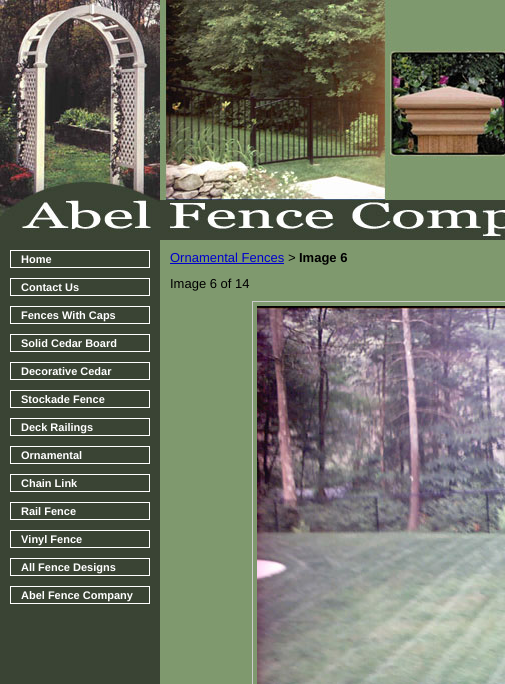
#include <cairo/cairo.h>
#include <math.h>
#include <stddef.h>

typedef struct { double x, y; const char *s; } line_t;
typedef struct { double x, y, w, h; unsigned color; } box_t;
static cairo_t *cr;

static void rgb(unsigned color)
{
	cairo_set_source_rgb(cr, (color >> 16) / 255.0, (color >> 8 & 255) / 255.0, (color & 255) / 255.0);
}

static void image(const char *path, double x, double y, double w, double h)
{
	cairo_surface_t *image = cairo_image_surface_create_from_png(path);
	cairo_save(cr);
	cairo_set_source_surface(cr, image, x, y);
	cairo_rectangle(cr, x, y, w, h);
	cairo_fill(cr);
	cairo_restore(cr);
	cairo_surface_destroy(image);
}

int main(void) {
	cairo_surface_t *surface = cairo_image_surface_create(CAIRO_FORMAT_RGB24, 505, 684);
	cr = cairo_create(surface);
	cairo_font_options_t *options = cairo_font_options_create();
	cairo_font_options_set_hint_metrics(options, CAIRO_HINT_METRICS_OFF);
	cairo_font_options_set_hint_style(options, CAIRO_HINT_STYLE_NONE);
	cairo_set_font_options(cr, options);
	cairo_set_miter_limit(cr, 4);
	rgb(0x7f996e);
	cairo_paint(cr);
	image("img/1.png", 0, 0, 505, 240);
	{
		static const box_t items[] = {
			{0, 240, 160, 444, 0x3a4434},
			{10, 250, 140, 18, 0xffffff},
			{11, 251, 138, 16, 0x3a4434},
			{10, 278, 140, 18, 0xffffff},
			{11, 279, 138, 16, 0x3a4434},
			{10, 306, 140, 18, 0xffffff},
			{11, 307, 138, 16, 0x3a4434},
			{10, 334, 140, 18, 0xffffff},
			{11, 335, 138, 16, 0x3a4434},
			{10, 362, 140, 18, 0xffffff},
			{11, 363, 138, 16, 0x3a4434},
			{10, 390, 140, 18, 0xffffff},
			{11, 391, 138, 16, 0x3a4434},
			{10, 418, 140, 18, 0xffffff},
			{11, 419, 138, 16, 0x3a4434},
			{10, 446, 140, 18, 0xffffff},
			{11, 447, 138, 16, 0x3a4434},
			{10, 474, 140, 18, 0xffffff},
			{11, 475, 138, 16, 0x3a4434},
			{10, 502, 140, 18, 0xffffff},
			{11, 503, 138, 16, 0x3a4434},
			{10, 530, 140, 18, 0xffffff},
			{11, 531, 138, 16, 0x3a4434},
			{10, 558, 140, 18, 0xffffff},
			{11, 559, 138, 16, 0x3a4434},
			{10, 586, 140, 18, 0xffffff},
			{11, 587, 138, 16, 0x3a4434},
			{170, 263, 114, 1, 0x0000cc},
		};
		for (size_t i = 0; i < sizeof items / sizeof *items; i++) {
			rgb(items[i].color);
			cairo_rectangle(cr, items[i].x, items[i].y, items[i].w, items[i].h);
			cairo_fill(cr);
		}
	}
	cairo_rectangle(cr, 252.5, 301.5, 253, 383);
	rgb(0xcccccc);
	cairo_set_line_width(cr, 1);
	cairo_stroke(cr);
	image("img/2.png", 257, 306, 248, 378);
	cairo_select_font_face(cr, "Liberation Sans", CAIRO_FONT_SLANT_NORMAL, CAIRO_FONT_WEIGHT_BOLD);
	cairo_set_font_size(cr, 11);
	rgb(0xffffff);
	{
		static const line_t items[] = {
			{21, 263, "Home"},
			{21, 291, "Contact Us"},
			{21, 319, "Fences With Caps"},
			{21, 347, "Solid Cedar Board"},
			{21, 375, "Decorative Cedar"},
			{21, 403, "Stockade Fence"},
			{21, 431, "Deck Railings"},
			{21, 459, "Ornamental"},
			{21, 487, "Chain Link"},
			{21, 515, "Rail Fence"},
			{21, 543, "Vinyl Fence"},
			{21, 571, "All Fence Designs"},
			{21, 599, "Abel Fence Company"},
		};
		for (size_t i = 0; i < sizeof items / sizeof *items; i++) {
			cairo_move_to(cr, items[i].x, items[i].y);
			cairo_show_text(cr, items[i].s);
		}
	}
	cairo_select_font_face(cr, "Liberation Sans", CAIRO_FONT_SLANT_NORMAL, CAIRO_FONT_WEIGHT_NORMAL);
	cairo_set_font_size(cr, 13);
	rgb(0x0000cc);
	cairo_move_to(cr, 170, 262);
	cairo_show_text(cr, "Ornamental Fences");
	cairo_select_font_face(cr, "Liberation Mono", CAIRO_FONT_SLANT_NORMAL, CAIRO_FONT_WEIGHT_NORMAL);
	rgb(0x000000);
	cairo_move_to(cr, 288, 262);
	cairo_show_text(cr, ">");
	cairo_select_font_face(cr, "Liberation Sans", CAIRO_FONT_SLANT_NORMAL, CAIRO_FONT_WEIGHT_BOLD);
	cairo_move_to(cr, 299, 262);
	cairo_show_text(cr, "Image 6");
	cairo_select_font_face(cr, "Liberation Sans", CAIRO_FONT_SLANT_NORMAL, CAIRO_FONT_WEIGHT_NORMAL);
	cairo_move_to(cr, 170, 288);
	cairo_show_text(cr, "Image 6 of 14");
	cairo_surface_write_to_png(surface, "page.png");
	cairo_font_options_destroy(options);
	cairo_destroy(cr);
	cairo_surface_destroy(surface);
	return 0;
}
